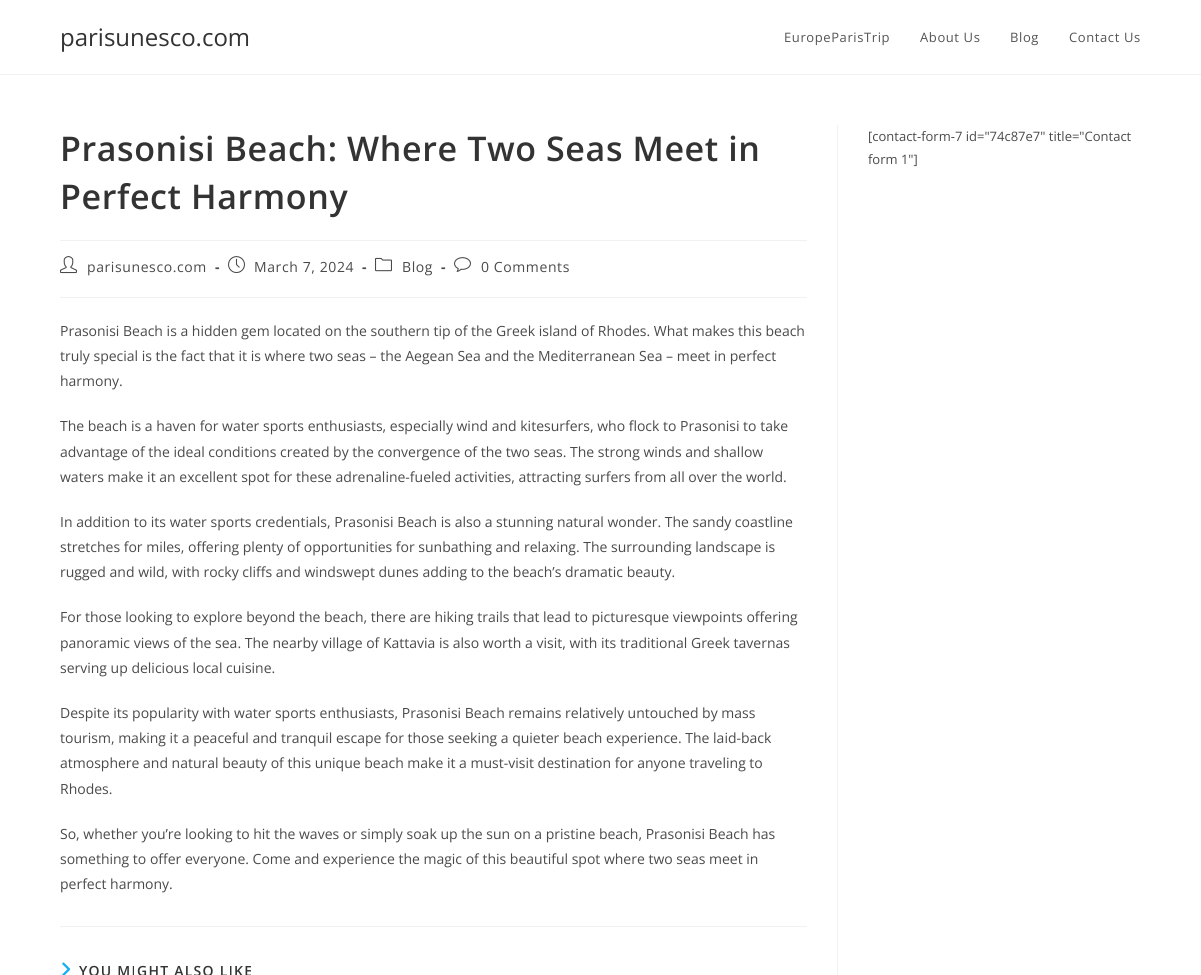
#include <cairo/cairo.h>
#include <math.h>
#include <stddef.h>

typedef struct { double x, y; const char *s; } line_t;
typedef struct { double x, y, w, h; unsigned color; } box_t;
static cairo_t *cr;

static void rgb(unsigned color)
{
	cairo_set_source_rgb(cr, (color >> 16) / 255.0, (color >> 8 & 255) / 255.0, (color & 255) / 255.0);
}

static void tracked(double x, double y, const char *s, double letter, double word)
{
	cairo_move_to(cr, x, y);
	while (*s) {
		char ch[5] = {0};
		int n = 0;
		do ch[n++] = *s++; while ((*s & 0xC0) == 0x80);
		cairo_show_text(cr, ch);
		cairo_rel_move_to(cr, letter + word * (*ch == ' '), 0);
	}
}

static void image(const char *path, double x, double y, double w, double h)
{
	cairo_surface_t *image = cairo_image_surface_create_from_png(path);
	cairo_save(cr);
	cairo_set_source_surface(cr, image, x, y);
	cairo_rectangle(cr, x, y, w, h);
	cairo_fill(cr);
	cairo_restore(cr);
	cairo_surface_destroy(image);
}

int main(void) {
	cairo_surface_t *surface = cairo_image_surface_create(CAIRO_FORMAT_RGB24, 1201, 975);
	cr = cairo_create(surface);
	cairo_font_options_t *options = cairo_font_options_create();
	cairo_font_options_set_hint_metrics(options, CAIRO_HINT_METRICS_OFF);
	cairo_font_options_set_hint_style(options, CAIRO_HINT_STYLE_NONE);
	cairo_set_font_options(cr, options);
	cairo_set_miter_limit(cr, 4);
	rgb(0xffffff);
	cairo_paint(cr);
	{
		static const box_t items[] = {
			{0, 74, 1201, 1, 0xf1f1f1},
			{837, 125, 1, 850, 0xf1f1f1},
			{60, 240, 747, 1, 0xf1f1f1},
			{60, 297, 747, 1, 0xf1f1f1},
		};
		for (size_t i = 0; i < sizeof items / sizeof *items; i++) {
			rgb(items[i].color);
			cairo_rectangle(cr, items[i].x, items[i].y, items[i].w, items[i].h);
			cairo_fill(cr);
		}
	}
	image("img/1.png", 60, 256, 17, 18);
	image("img/2.png", 228, 256, 17, 18);
	image("img/3.png", 375, 257, 17, 15);
	image("img/4.png", 454, 257, 17, 15);
	cairo_rectangle(cr, 60, 926, 747, 1);
	cairo_fill(cr);
	image("img/5.png", 62, 962, 9, 13);
	cairo_select_font_face(cr, "Open Sans", CAIRO_FONT_SLANT_NORMAL, CAIRO_FONT_WEIGHT_NORMAL);
	cairo_set_font_size(cr, 24);
	rgb(0x333333);
	cairo_move_to(cr, 60, 46);
	cairo_show_text(cr, "parisunesco.com");
	cairo_set_font_size(cr, 13);
	rgb(0x555555);
	{
		static const line_t items[] = {
			{784, 42, "EuropeParisTrip"},
			{920, 42, "About Us"},
			{1010, 42, "Blog"},
			{1069, 42, "Contact Us"},
		};
		for (size_t i = 0; i < sizeof items / sizeof *items; i++) {
			tracked(items[i].x, items[i].y, items[i].s, 0.6, 0);
		}
	}
	cairo_select_font_face(cr, "Open Sans SemiBold", CAIRO_FONT_SLANT_NORMAL, CAIRO_FONT_WEIGHT_NORMAL);
	cairo_set_font_size(cr, 34);
	rgb(0x333333);
	tracked(60, 161, "Prasonisi Beach: Where Two Seas Meet in", 0.6, 0);
	tracked(60, 209, "Perfect Harmony", 0.6, 0);
	cairo_select_font_face(cr, "Open Sans", CAIRO_FONT_SLANT_NORMAL, CAIRO_FONT_WEIGHT_NORMAL);
	cairo_set_font_size(cr, 14);
	rgb(0x4a4a4a);
	tracked(87, 272, "parisunesco.com", 0.6, 0);
	cairo_select_font_face(cr, "Open Sans", CAIRO_FONT_SLANT_NORMAL, CAIRO_FONT_WEIGHT_BOLD);
	tracked(215, 272, "-", 0.6, 0);
	cairo_select_font_face(cr, "Open Sans", CAIRO_FONT_SLANT_NORMAL, CAIRO_FONT_WEIGHT_NORMAL);
	tracked(254, 272, "March 7, 2024", 0.6, 0);
	cairo_select_font_face(cr, "Open Sans", CAIRO_FONT_SLANT_NORMAL, CAIRO_FONT_WEIGHT_BOLD);
	tracked(362, 272, "-", 0.6, 0);
	cairo_select_font_face(cr, "Open Sans", CAIRO_FONT_SLANT_NORMAL, CAIRO_FONT_WEIGHT_NORMAL);
	tracked(402, 272, "Blog", 0.6, 0);
	cairo_select_font_face(cr, "Open Sans", CAIRO_FONT_SLANT_NORMAL, CAIRO_FONT_WEIGHT_BOLD);
	tracked(441, 272, "-", 0.6, 0);
	cairo_select_font_face(cr, "Open Sans", CAIRO_FONT_SLANT_NORMAL, CAIRO_FONT_WEIGHT_NORMAL);
	tracked(481, 272, "0 Comments", 0.6, 0);
	{
		static const line_t items[] = {
			{60, 336, "Prasonisi Beach is a hidden gem located on the southern tip of the Greek island of Rhodes. What makes this beach"},
			{60, 361, "truly special is the fact that it is where two seas – the Aegean Sea and the Mediterranean Sea – meet in perfect"},
			{60, 386, "harmony."},
			{60, 431, "The beach is a haven for water sports enthusiasts, especially wind and kitesurfers, who flock to Prasonisi to take"},
			{60, 457, "advantage of the ideal conditions created by the convergence of the two seas. The strong winds and shallow"},
			{60, 482, "waters make it an excellent spot for these adrenaline-fueled activities, attracting surfers from all over the world."},
			{60, 527, "In addition to its water sports credentials, Prasonisi Beach is also a stunning natural wonder. The sandy coastline"},
			{60, 552, "stretches for miles, offering plenty of opportunities for sunbathing and relaxing. The surrounding landscape is"},
			{60, 577, "rugged and wild, with rocky cliffs and windswept dunes adding to the beach’s dramatic beauty."},
			{60, 622, "For those looking to explore beyond the beach, there are hiking trails that lead to picturesque viewpoints offering"},
			{60, 648, "panoramic views of the sea. The nearby village of Kattavia is also worth a visit, with its traditional Greek tavernas"},
			{60, 673, "serving up delicious local cuisine."},
			{60, 718, "Despite its popularity with water sports enthusiasts, Prasonisi Beach remains relatively untouched by mass"},
			{60, 743, "tourism, making it a peaceful and tranquil escape for those seeking a quieter beach experience. The laid-back"},
			{60, 768, "atmosphere and natural beauty of this unique beach make it a must-visit destination for anyone traveling to"},
			{60, 794, "Rhodes."},
			{60, 839, "So, whether you’re looking to hit the waves or simply soak up the sun on a pristine beach, Prasonisi Beach has"},
			{60, 864, "something to offer everyone. Come and experience the magic of this beautiful spot where two seas meet in"},
			{60, 889, "perfect harmony."},
		};
		for (size_t i = 0; i < sizeof items / sizeof *items; i++) {
			cairo_move_to(cr, items[i].x, items[i].y);
			cairo_show_text(cr, items[i].s);
		}
	}
	cairo_select_font_face(cr, "Open Sans SemiBold", CAIRO_FONT_SLANT_NORMAL, CAIRO_FONT_WEIGHT_NORMAL);
	rgb(0x333333);
	tracked(79, 976, "YOU MIGHT ALSO LIKE", 1.25, 0);
	cairo_select_font_face(cr, "Open Sans", CAIRO_FONT_SLANT_NORMAL, CAIRO_FONT_WEIGHT_NORMAL);
	cairo_set_font_size(cr, 13);
	rgb(0x4a4a4a);
	cairo_move_to(cr, 868, 141);
	cairo_show_text(cr, "[contact-form-7 id=\"74c87e7\" title=\"Contact");
	cairo_move_to(cr, 868, 164);
	cairo_show_text(cr, "form 1\"]");
	cairo_surface_write_to_png(surface, "page.png");
	cairo_font_options_destroy(options);
	cairo_destroy(cr);
	cairo_surface_destroy(surface);
	return 0;
}
